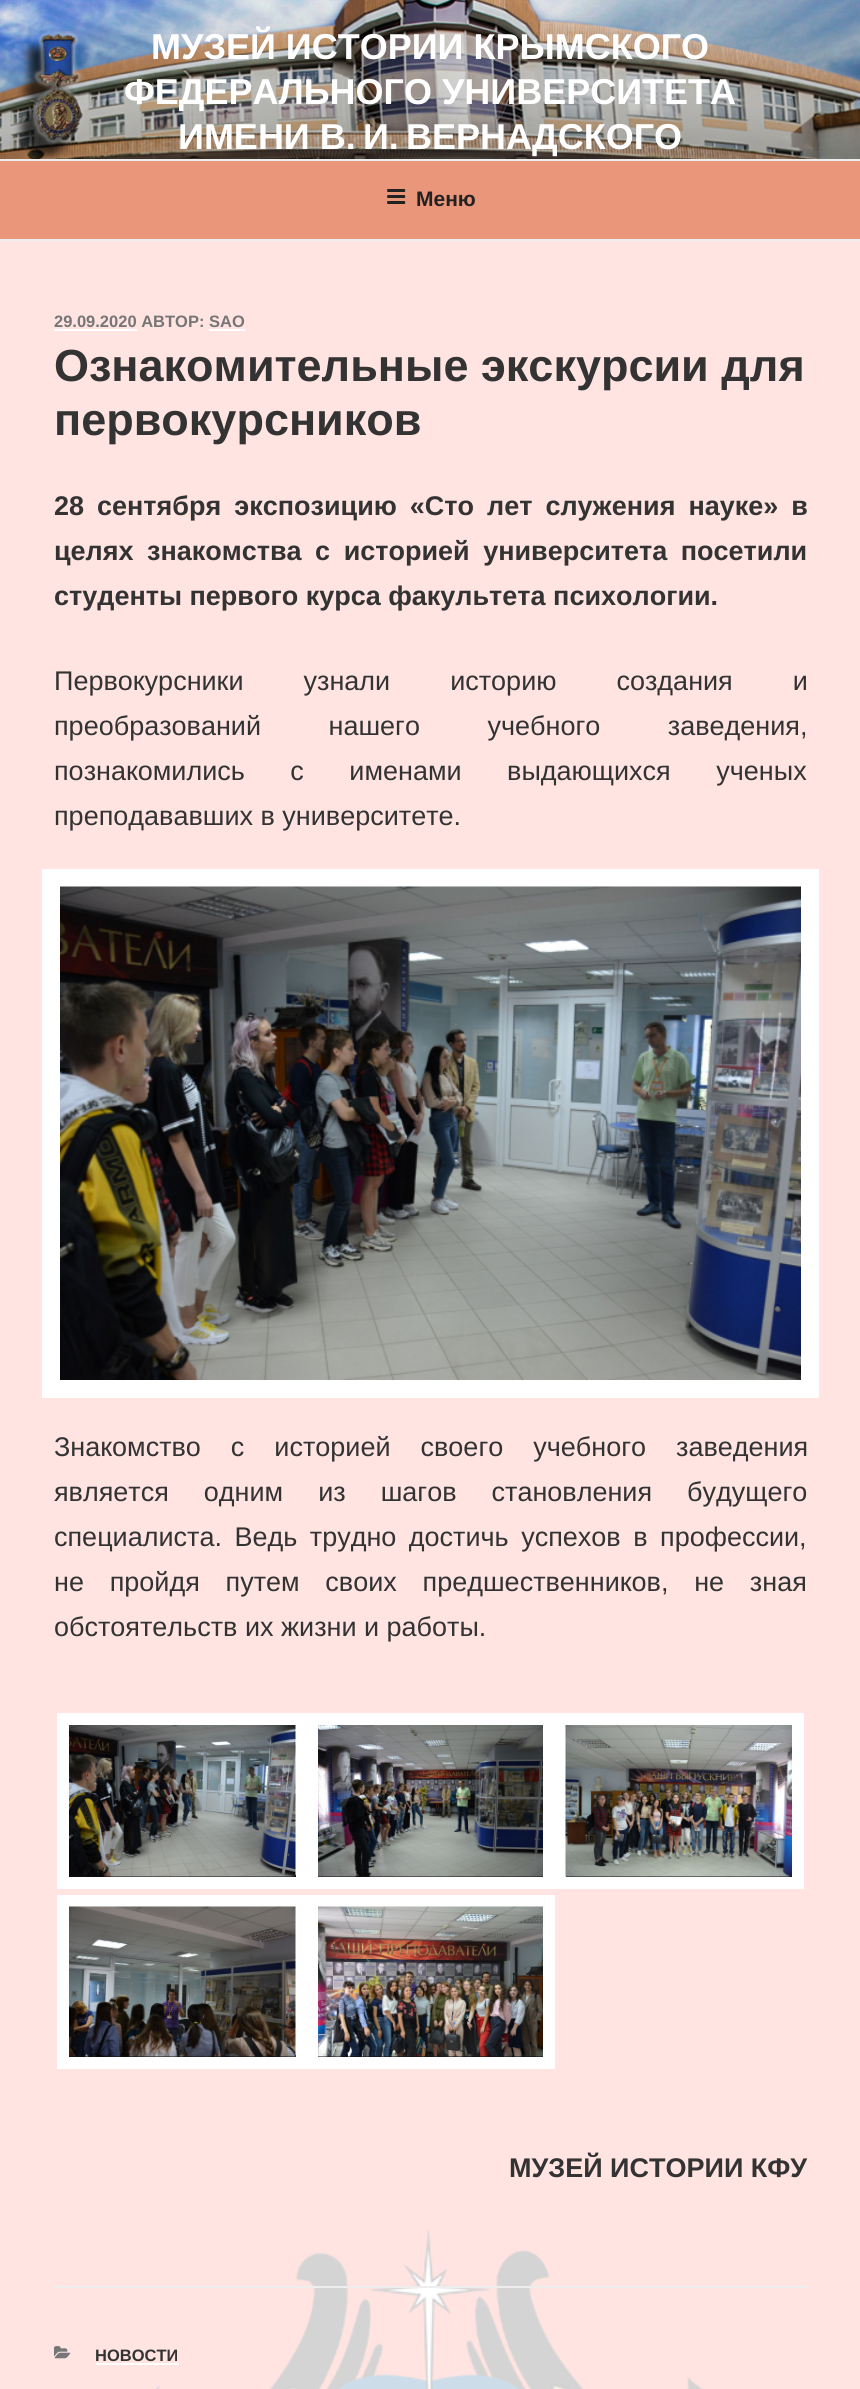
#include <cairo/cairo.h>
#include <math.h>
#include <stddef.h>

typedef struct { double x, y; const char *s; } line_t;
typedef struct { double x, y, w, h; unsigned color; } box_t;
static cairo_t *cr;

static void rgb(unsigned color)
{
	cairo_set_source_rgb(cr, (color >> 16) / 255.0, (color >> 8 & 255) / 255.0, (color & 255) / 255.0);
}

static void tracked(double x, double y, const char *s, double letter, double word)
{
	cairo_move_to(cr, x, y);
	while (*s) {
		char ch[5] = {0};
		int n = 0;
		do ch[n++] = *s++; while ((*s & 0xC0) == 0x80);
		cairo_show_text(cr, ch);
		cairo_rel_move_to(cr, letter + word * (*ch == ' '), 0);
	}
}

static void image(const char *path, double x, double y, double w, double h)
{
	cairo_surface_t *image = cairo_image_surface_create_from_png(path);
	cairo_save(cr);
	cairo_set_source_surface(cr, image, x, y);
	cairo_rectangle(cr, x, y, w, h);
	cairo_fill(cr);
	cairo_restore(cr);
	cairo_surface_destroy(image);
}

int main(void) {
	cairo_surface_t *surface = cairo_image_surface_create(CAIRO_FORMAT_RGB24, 860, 2389);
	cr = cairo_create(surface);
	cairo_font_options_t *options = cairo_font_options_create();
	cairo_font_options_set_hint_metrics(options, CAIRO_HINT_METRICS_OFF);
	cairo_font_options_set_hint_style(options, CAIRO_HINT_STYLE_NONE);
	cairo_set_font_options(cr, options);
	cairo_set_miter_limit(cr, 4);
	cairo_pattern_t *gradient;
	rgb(0xffffff);
	cairo_paint(cr);
	image("img/1.png", 0, 0, 860, 159);
	gradient = cairo_pattern_create_linear(431, -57, 431, 240);
	cairo_pattern_add_color_stop_rgba(gradient, 0, 0, 0, 0, 0);
	cairo_pattern_add_color_stop_rgba(gradient, 0.75, 0, 0, 0, 0.3);
	cairo_pattern_add_color_stop_rgba(gradient, 1, 0, 0, 0, 0.3);
	cairo_set_source(cr, gradient);
	cairo_pattern_destroy(gradient);
	cairo_rectangle(cr, 0, 0, 860, 159);
	cairo_fill(cr);
	{
		static const box_t items[] = {
			{0, 161, 860, 78, 0xe9967a},
			{0, 159, 860, 2, 0xeeeeee},
			{0, 239, 860, 2, 0xeeeeee},
		};
		for (size_t i = 0; i < sizeof items / sizeof *items; i++) {
			rgb(items[i].color);
			cairo_rectangle(cr, items[i].x, items[i].y, items[i].w, items[i].h);
			cairo_fill(cr);
		}
	}
	image("img/2.png", 387, 189, 19, 15);
	rgb(0xffe4e1);
	cairo_rectangle(cr, 0, 241, 860, 2148);
	cairo_fill(cr);
	image("img/3.png", 155, 2229, 549, 160);
	rgb(0xffffff);
	cairo_rectangle(cr, 54, 329, 83, 2);
	cairo_fill(cr);
	cairo_rectangle(cr, 209, 329, 36, 2);
	cairo_fill(cr);
	cairo_rectangle(cr, 48, 875, 765, 517);
	cairo_set_line_width(cr, 12);
	cairo_stroke(cr);
	cairo_rectangle(cr, 54, 881, 753, 505);
	cairo_fill(cr);
	image("img/4.png", 60, 886, 741, 494);
	cairo_rectangle(cr, 295, 1725, 1, 150);
	cairo_fill(cr);
	rgb(0x0f0f0f);
	cairo_rectangle(cr, 69, 1875, 227, 2);
	cairo_fill(cr);
	cairo_rectangle(cr, 63, 1719, 239, 164);
	rgb(0xffffff);
	cairo_stroke(cr);
	image("img/5.png", 69, 1725, 227, 152);
	rgb(0x0f0f0f);
	cairo_rectangle(cr, 318, 1876, 225, 1);
	cairo_fill(cr);
	cairo_rectangle(cr, 312, 1719, 237, 164);
	rgb(0xffffff);
	cairo_stroke(cr);
	image("img/6.png", 318, 1725, 225, 152);
	rgb(0x0f0f0f);
	cairo_rectangle(cr, 566, 1876, 226, 1);
	cairo_fill(cr);
	cairo_rectangle(cr, 560, 1719, 238, 164);
	rgb(0xffffff);
	cairo_stroke(cr);
	image("img/7.png", 565, 1725, 227, 152);
	cairo_rectangle(cr, 295, 1907, 1, 148);
	cairo_fill(cr);
	rgb(0x0f0f0f);
	cairo_rectangle(cr, 69, 2055, 227, 2);
	cairo_fill(cr);
	cairo_rectangle(cr, 63, 1901, 239, 162);
	rgb(0xffffff);
	cairo_stroke(cr);
	image("img/8.png", 69, 1906, 227, 151);
	rgb(0x0f0f0f);
	cairo_rectangle(cr, 318, 2056, 225, 1);
	cairo_fill(cr);
	cairo_rectangle(cr, 312, 1901, 237, 162);
	rgb(0xffffff);
	cairo_stroke(cr);
	image("img/9.png", 318, 1906, 225, 151);
	rgb(0xeeeeee);
	cairo_rectangle(cr, 54, 2286, 753, 2);
	cairo_fill(cr);
	image("img/10.png", 54, 2346, 17, 13);
	rgb(0xffffff);
	cairo_rectangle(cr, 96, 2363, 83, 2);
	cairo_fill(cr);
	cairo_select_font_face(cr, "Liberation Sans", CAIRO_FONT_SLANT_NORMAL, CAIRO_FONT_WEIGHT_BOLD);
	cairo_set_font_size(cr, 36);
	{
		static const line_t items[] = {
			{151, 59, "МУЗЕЙ ИСТОРИИ КРЫМСКОГО"},
			{124, 104, "ФЕДЕРАЛЬНОГО УНИВЕРСИТЕТА"},
			{178, 149, "ИМЕНИ В. И. ВЕРНАДСКОГО"},
		};
		for (size_t i = 0; i < sizeof items / sizeof *items; i++) {
			cairo_move_to(cr, items[i].x, items[i].y);
			cairo_show_text(cr, items[i].s);
		}
	}
	cairo_set_font_size(cr, 21);
	rgb(0x222222);
	cairo_move_to(cr, 416, 206);
	cairo_show_text(cr, "Меню");
	cairo_set_font_size(cr, 16.5);
	rgb(0x767676);
	cairo_move_to(cr, 54, 327);
	cairo_show_text(cr, "29.09.2020 АВТОР: SAO");
	cairo_set_font_size(cr, 45);
	rgb(0x333333);
	cairo_move_to(cr, 54, 381);
	cairo_show_text(cr, "Ознакомительные экскурсии для");
	cairo_move_to(cr, 54, 435);
	cairo_show_text(cr, "первокурсников");
	cairo_set_font_size(cr, 27);
	tracked(54, 515, "28 сентября экспозицию «Сто лет служения науке» в", 0, 5.5);
	tracked(54, 560, "целях знакомства с историей университета посетили", 0, 6);
	cairo_move_to(cr, 54, 605);
	cairo_show_text(cr, "студенты первого курса факультета психологии.");
	cairo_select_font_face(cr, "Liberation Sans", CAIRO_FONT_SLANT_NORMAL, CAIRO_FONT_WEIGHT_NORMAL);
	tracked(54, 690, "Первокурсники узнали историю создания и", 0, 52.5);
	tracked(54, 735, "преобразований нашего учебного заведения,", 0, 60);
	tracked(54, 780, "познакомились с именами выдающихся ученых", 0, 38);
	cairo_move_to(cr, 54, 825);
	cairo_show_text(cr, "преподававших в университете.");
	tracked(54, 1456, "Знакомство с историей своего учебного заведения", 0, 22.5);
	tracked(54, 1501, "является одним из шагов становления будущего", 0, 27.5);
	tracked(54, 1546, "специалиста. Ведь трудно достичь успехов в профессии,", 0, 5);
	tracked(54, 1591, "не пройдя путем своих предшественников, не зная", 0, 18.25);
	cairo_move_to(cr, 54, 1636);
	cairo_show_text(cr, "обстоятельств их жизни и работы.");
	cairo_select_font_face(cr, "Liberation Sans", CAIRO_FONT_SLANT_NORMAL, CAIRO_FONT_WEIGHT_BOLD);
	cairo_move_to(cr, 509, 2177);
	cairo_show_text(cr, "МУЗЕЙ ИСТОРИИ КФУ");
	cairo_set_font_size(cr, 16.5);
	cairo_move_to(cr, 95, 2361);
	cairo_show_text(cr, "НОВОСТИ");
	cairo_surface_write_to_png(surface, "page.png");
	cairo_font_options_destroy(options);
	cairo_destroy(cr);
	cairo_surface_destroy(surface);
	return 0;
}
